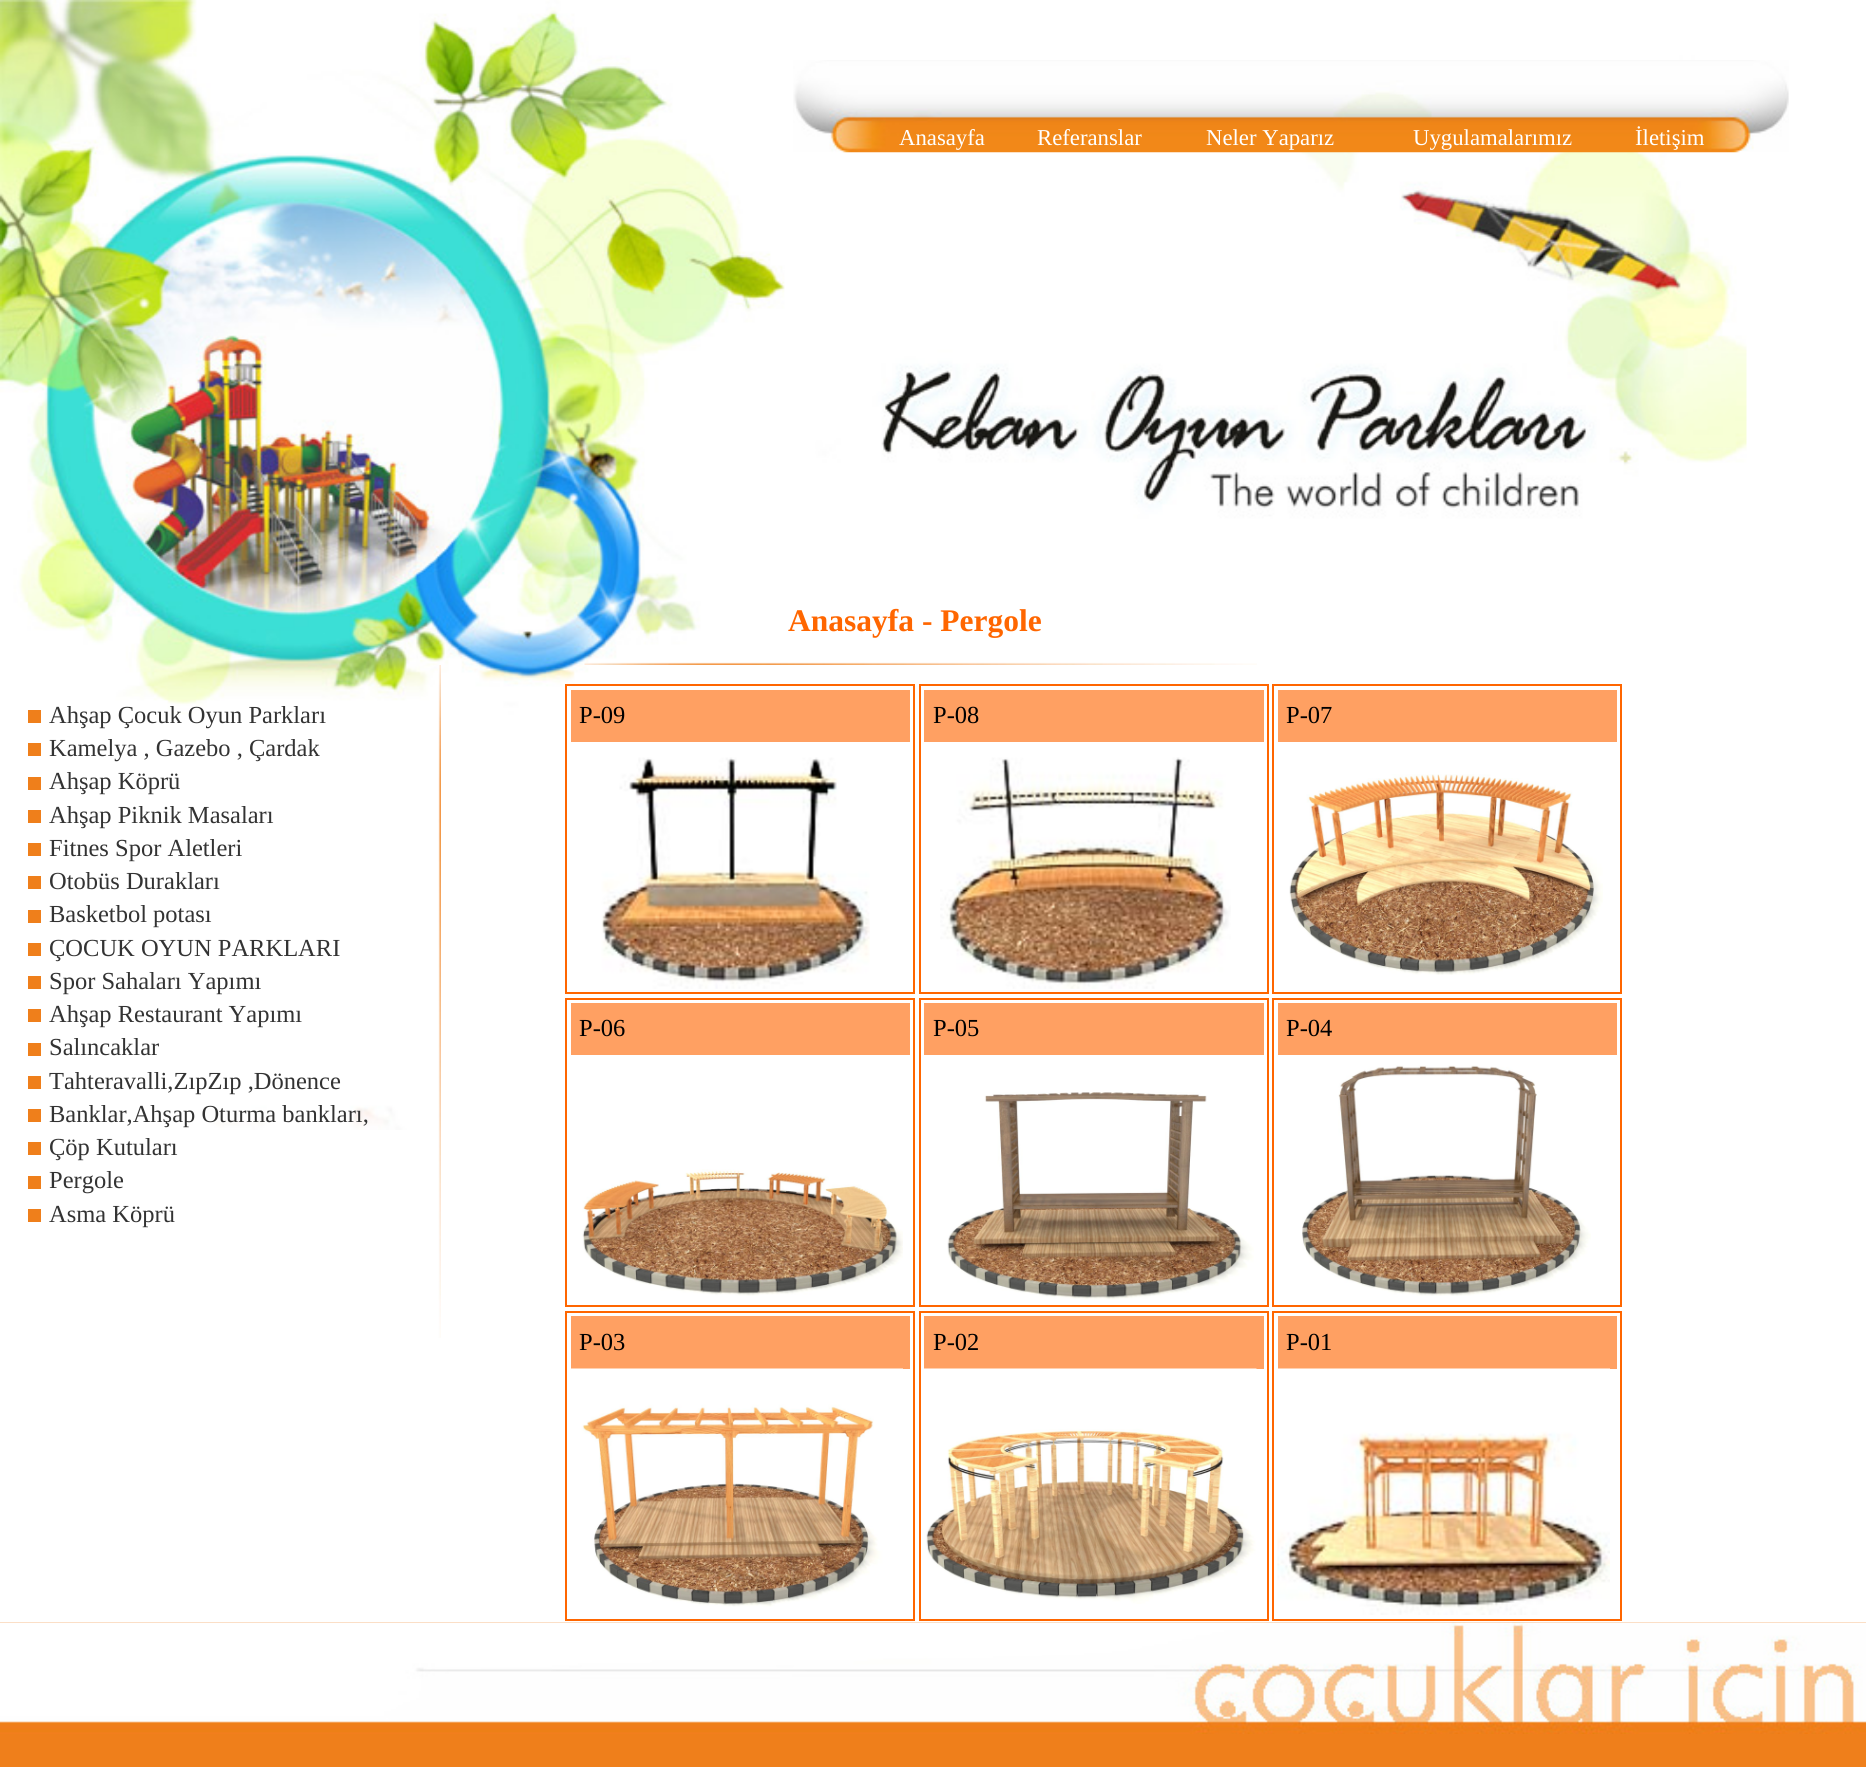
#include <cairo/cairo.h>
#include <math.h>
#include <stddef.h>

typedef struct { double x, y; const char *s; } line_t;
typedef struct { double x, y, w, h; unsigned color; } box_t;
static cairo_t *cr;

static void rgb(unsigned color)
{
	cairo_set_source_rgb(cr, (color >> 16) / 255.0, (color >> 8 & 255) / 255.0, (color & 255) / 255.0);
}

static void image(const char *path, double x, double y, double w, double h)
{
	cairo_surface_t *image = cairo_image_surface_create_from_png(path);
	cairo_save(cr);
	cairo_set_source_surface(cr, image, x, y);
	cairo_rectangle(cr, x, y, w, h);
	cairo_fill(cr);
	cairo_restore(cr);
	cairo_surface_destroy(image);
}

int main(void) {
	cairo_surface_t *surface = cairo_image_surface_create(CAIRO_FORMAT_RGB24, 1866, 1767);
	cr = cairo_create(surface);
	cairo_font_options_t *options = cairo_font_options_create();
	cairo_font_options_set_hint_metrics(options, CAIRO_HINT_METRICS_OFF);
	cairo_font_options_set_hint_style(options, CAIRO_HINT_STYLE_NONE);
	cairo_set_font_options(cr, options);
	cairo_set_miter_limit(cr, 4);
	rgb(0xffffff);
	cairo_paint(cr);
	image("img/1.png", 0, 0, 1747, 1130);
	image("img/2.png", 793, 60, 996, 93);
	image("img/3.png", 584, 662, 673, 3);
	{
		static const box_t items[] = {
			{28, 710, 13, 13, 0xef7f1b},
			{28, 743, 13, 13, 0xef7f1b},
			{28, 777, 13, 13, 0xef7f1b},
			{28, 810, 13, 13, 0xef7f1b},
			{28, 843, 13, 13, 0xef7f1b},
			{28, 876, 13, 13, 0xef7f1b},
			{28, 910, 13, 13, 0xef7f1b},
			{28, 943, 13, 13, 0xef7f1b},
			{28, 976, 13, 13, 0xef7f1b},
			{28, 1009, 13, 13, 0xef7f1b},
			{28, 1043, 13, 13, 0xef7f1b},
			{28, 1076, 13, 13, 0xef7f1b},
			{28, 1109, 13, 13, 0xef7f1b},
			{28, 1142, 13, 13, 0xef7f1b},
			{28, 1176, 13, 13, 0xef7f1b},
			{28, 1209, 13, 13, 0xef7f1b},
		};
		for (size_t i = 0; i < sizeof items / sizeof *items; i++) {
			rgb(items[i].color);
			cairo_rectangle(cr, items[i].x, items[i].y, items[i].w, items[i].h);
			cairo_fill(cr);
		}
	}
	image("img/4.png", 438, 665, 3, 673);
	cairo_rectangle(cr, 566, 685, 348, 308);
	rgb(0xff6600);
	cairo_stroke(cr);
	rgb(0xffa062);
	cairo_rectangle(cr, 571, 690, 339, 52);
	cairo_fill(cr);
	image("img/5.png", 601, 757, 269, 232);
	cairo_rectangle(cr, 920, 685, 348, 308);
	rgb(0xff6600);
	cairo_stroke(cr);
	rgb(0xffa062);
	cairo_rectangle(cr, 924, 690, 340, 52);
	cairo_fill(cr);
	image("img/6.png", 940, 757, 291, 232);
	cairo_rectangle(cr, 1273, 685, 348, 308);
	rgb(0xff6600);
	cairo_stroke(cr);
	rgb(0xffa062);
	cairo_rectangle(cr, 1278, 690, 339, 52);
	cairo_fill(cr);
	image("img/7.png", 1289, 774, 314, 201);
	cairo_rectangle(cr, 566, 999, 348, 307);
	rgb(0xff6600);
	cairo_stroke(cr);
	rgb(0xffa062);
	cairo_rectangle(cr, 571, 1003, 339, 52);
	cairo_fill(cr);
	image("img/8.png", 582, 1169, 321, 127);
	cairo_rectangle(cr, 920, 999, 348, 307);
	rgb(0xff6600);
	cairo_stroke(cr);
	rgb(0xffa062);
	cairo_rectangle(cr, 924, 1003, 340, 52);
	cairo_fill(cr);
	image("img/9.png", 947, 1092, 307, 208);
	cairo_rectangle(cr, 1273, 999, 348, 307);
	rgb(0xff6600);
	cairo_stroke(cr);
	rgb(0xffa062);
	cairo_rectangle(cr, 1278, 1003, 339, 52);
	cairo_fill(cr);
	image("img/10.png", 1302, 1065, 289, 231);
	cairo_rectangle(cr, 566, 1312, 348, 308);
	rgb(0xff6600);
	cairo_stroke(cr);
	rgb(0xffa062);
	cairo_rectangle(cr, 571, 1316, 339, 53);
	cairo_fill(cr);
	image("img/11.png", 571, 1368, 332, 239);
	cairo_rectangle(cr, 920, 1312, 348, 308);
	rgb(0xff6600);
	cairo_stroke(cr);
	rgb(0xffa062);
	cairo_rectangle(cr, 924, 1316, 340, 53);
	cairo_fill(cr);
	image("img/12.png", 924, 1368, 333, 236);
	cairo_rectangle(cr, 1273, 1312, 348, 308);
	rgb(0xff6600);
	cairo_stroke(cr);
	rgb(0xffa062);
	cairo_rectangle(cr, 1278, 1316, 339, 53);
	cairo_fill(cr);
	image("img/13.png", 1277, 1368, 333, 247);
	rgb(0xef7f1b);
	cairo_rectangle(cr, 0, 1622, 1866, 145);
	cairo_fill(cr);
	image("img/14.png", 0, 1622, 1866, 112);
	cairo_select_font_face(cr, "Liberation Serif", CAIRO_FONT_SLANT_NORMAL, CAIRO_FONT_WEIGHT_NORMAL);
	cairo_set_font_size(cr, 22.75);
	rgb(0xffffff);
	{
		static const line_t items[] = {
			{899, 145, "Anasayfa"},
			{1037, 145, "Referanslar"},
			{1206, 145, "Neler Yaparız"},
			{1413, 145, "Uygulamalarımız"},
			{1635, 145, "İletişim"},
		};
		for (size_t i = 0; i < sizeof items / sizeof *items; i++) {
			cairo_move_to(cr, items[i].x, items[i].y);
			cairo_show_text(cr, items[i].s);
		}
	}
	cairo_select_font_face(cr, "Liberation Serif", CAIRO_FONT_SLANT_NORMAL, CAIRO_FONT_WEIGHT_BOLD);
	cairo_set_font_size(cr, 31.5);
	rgb(0xff6600);
	cairo_move_to(cr, 788, 631);
	cairo_show_text(cr, "Anasayfa - Pergole");
	cairo_select_font_face(cr, "Liberation Serif", CAIRO_FONT_SLANT_NORMAL, CAIRO_FONT_WEIGHT_NORMAL);
	cairo_set_font_size(cr, 24.5);
	rgb(0x333333);
	{
		static const line_t items[] = {
			{49, 723, "Ahşap Çocuk Oyun Parkları"},
			{49, 756, "Kamelya , Gazebo , Çardak"},
			{49, 789, "Ahşap Köprü"},
			{49, 823, "Ahşap Piknik Masaları"},
			{49, 856, "Fitnes Spor Aletleri"},
			{49, 889, "Otobüs Durakları"},
			{49, 922, "Basketbol potası"},
			{49, 956, "ÇOCUK OYUN PARKLARI"},
			{49, 989, "Spor Sahaları Yapımı"},
			{49, 1022, "Ahşap Restaurant Yapımı"},
			{49, 1055, "Salıncaklar"},
			{49, 1089, "Tahteravalli,ZıpZıp ,Dönence"},
			{49, 1122, "Banklar,Ahşap Oturma bankları,"},
			{49, 1155, "Çöp Kutuları"},
			{49, 1188, "Pergole"},
			{49, 1222, "Asma Köprü"},
		};
		for (size_t i = 0; i < sizeof items / sizeof *items; i++) {
			cairo_move_to(cr, items[i].x, items[i].y);
			cairo_show_text(cr, items[i].s);
		}
	}
	rgb(0x000000);
	{
		static const line_t items[] = {
			{579, 723, "P-09"},
			{933, 723, "P-08"},
			{1286, 723, "P-07"},
			{579, 1036, "P-06"},
			{933, 1036, "P-05"},
			{1286, 1036, "P-04"},
			{579, 1350, "P-03"},
			{933, 1350, "P-02"},
			{1286, 1350, "P-01"},
		};
		for (size_t i = 0; i < sizeof items / sizeof *items; i++) {
			cairo_move_to(cr, items[i].x, items[i].y);
			cairo_show_text(cr, items[i].s);
		}
	}
	cairo_surface_write_to_png(surface, "page.png");
	cairo_font_options_destroy(options);
	cairo_destroy(cr);
	cairo_surface_destroy(surface);
	return 0;
}
